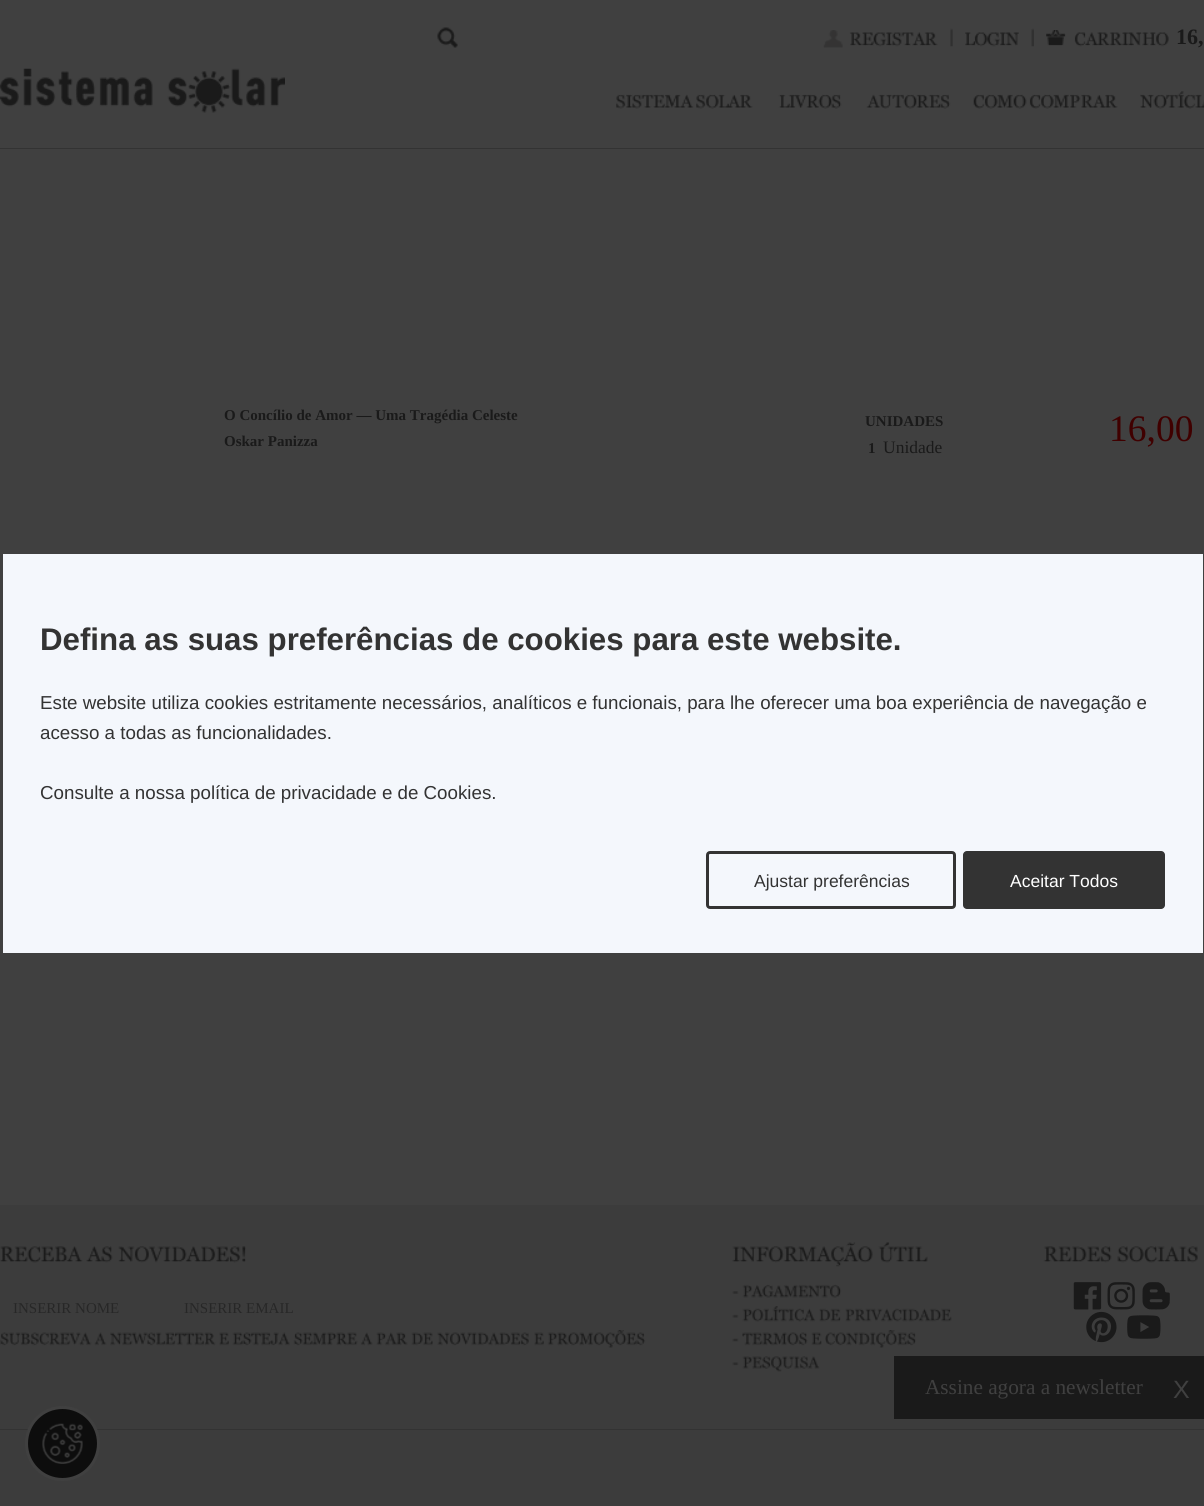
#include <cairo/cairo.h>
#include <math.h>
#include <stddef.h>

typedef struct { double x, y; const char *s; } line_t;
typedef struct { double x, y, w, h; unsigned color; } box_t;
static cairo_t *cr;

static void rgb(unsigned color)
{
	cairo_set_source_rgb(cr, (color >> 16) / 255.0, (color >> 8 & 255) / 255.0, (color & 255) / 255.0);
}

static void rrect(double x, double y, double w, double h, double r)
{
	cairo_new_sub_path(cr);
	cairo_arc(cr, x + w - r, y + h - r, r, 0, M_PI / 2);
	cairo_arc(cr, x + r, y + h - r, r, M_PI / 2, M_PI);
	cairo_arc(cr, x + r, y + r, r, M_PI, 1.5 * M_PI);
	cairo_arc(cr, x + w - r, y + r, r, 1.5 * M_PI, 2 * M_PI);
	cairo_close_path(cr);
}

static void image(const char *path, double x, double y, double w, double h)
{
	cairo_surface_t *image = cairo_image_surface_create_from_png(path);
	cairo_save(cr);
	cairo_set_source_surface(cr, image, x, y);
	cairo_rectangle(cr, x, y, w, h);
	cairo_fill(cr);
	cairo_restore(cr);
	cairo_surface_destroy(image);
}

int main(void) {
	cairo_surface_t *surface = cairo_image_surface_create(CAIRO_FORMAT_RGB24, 1204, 1506);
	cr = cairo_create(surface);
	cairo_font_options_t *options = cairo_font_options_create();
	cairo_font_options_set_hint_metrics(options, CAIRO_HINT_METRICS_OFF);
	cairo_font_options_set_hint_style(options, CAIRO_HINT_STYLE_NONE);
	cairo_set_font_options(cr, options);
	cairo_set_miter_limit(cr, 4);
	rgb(0x404040);
	cairo_paint(cr);
	image("img/1.png", 437, 27, 21, 21);
	image("img/2.png", 823, 30, 115, 18);
	image("img/3.png", 950, 28, 3, 19);
	image("img/4.png", 965, 32, 54, 15);
	image("img/5.png", 1031, 28, 3, 19);
	image("img/6.png", 1046, 30, 123, 17);
	image("img/7.png", 0, 68, 285, 45);
	image("img/8.png", 616, 94, 137, 15);
	image("img/9.png", 778, 94, 64, 15);
	image("img/10.png", 866, 94, 85, 15);
	image("img/11.png", 973, 94, 145, 15);
	image("img/12.png", 1140, 91, 64, 18);
	rgb(0x333333);
	cairo_rectangle(cr, 0, 148, 1204, 1);
	cairo_fill(cr);
	rgb(0x3c3c3c);
	cairo_rectangle(cr, 0, 1205, 1204, 301);
	cairo_fill(cr);
	image("img/13.png", 0, 1246, 83, 17);
	image("img/14.png", 86, 1246, 27, 17);
	image("img/15.png", 118, 1246, 128, 17);
	image("img/16.png", 0, 1332, 92, 14);
	image("img/17.png", 94, 1332, 13, 14);
	image("img/18.png", 110, 1332, 106, 14);
	image("img/19.png", 219, 1332, 10, 14);
	image("img/20.png", 232, 1332, 58, 14);
	image("img/21.png", 293, 1332, 65, 14);
	image("img/22.png", 360, 1332, 13, 14);
	image("img/23.png", 376, 1332, 32, 14);
	image("img/24.png", 411, 1332, 22, 14);
	image("img/25.png", 437, 1332, 92, 14);
	image("img/19.png", 534, 1332, 10, 14);
	image("img/26.png", 547, 1330, 99, 18);
	image("img/27.png", 732, 1242, 141, 25);
	image("img/28.png", 878, 1242, 50, 21);
	image("img/29.png", 732, 1291, 7, 3);
	image("img/30.png", 742, 1284, 100, 14);
	image("img/31.png", 732, 1314, 7, 4);
	image("img/32.png", 742, 1306, 74, 16);
	image("img/33.png", 819, 1308, 22, 14);
	image("img/34.png", 845, 1308, 107, 14);
	image("img/35.png", 732, 1338, 7, 4);
	image("img/36.png", 742, 1332, 66, 14);
	image("img/37.png", 811, 1332, 11, 14);
	image("img/38.png", 825, 1330, 91, 18);
	image("img/39.png", 732, 1362, 7, 4);
	image("img/40.png", 742, 1356, 78, 16);
	image("img/41.png", 1043, 1246, 69, 17);
	image("img/42.png", 1117, 1246, 81, 17);
	image("img/43.png", 1073, 1282, 29, 28);
	image("img/44.png", 1107, 1282, 28, 28);
	image("img/45.png", 1142, 1282, 28, 28);
	image("img/46.png", 1086, 1311, 31, 32);
	image("img/47.png", 1127, 1315, 34, 24);
	{
		static const box_t items[] = {
			{0, 1429, 1204, 1, 0x333333},
			{894, 1356, 310, 63, 0x1a1a1a},
			{3, 554, 1200, 399, 0xf4f7fc},
		};
		for (size_t i = 0; i < sizeof items / sizeof *items; i++) {
			rgb(items[i].color);
			cairo_rectangle(cr, items[i].x, items[i].y, items[i].w, items[i].h);
			cairo_fill(cr);
		}
	}
	rrect(707.5, 852.5, 247, 55, 2.5);
	rgb(0x333333);
	cairo_set_line_width(cr, 3);
	cairo_stroke(cr);
	rrect(963, 851, 202, 58, 4);
	cairo_fill(cr);
	rgb(0x0d0d0d);
	cairo_arc(cr, 62.5, 1443.5, 36, 0, 2 * M_PI);
	cairo_fill_preserve(cr);
	rgb(0x404040);
	cairo_stroke(cr);
	image("img/48.png", 42, 1423, 41, 41);
	cairo_select_font_face(cr, "Liberation Serif", CAIRO_FONT_SLANT_NORMAL, CAIRO_FONT_WEIGHT_BOLD);
	cairo_set_font_size(cr, 22);
	rgb(0x1a1a1a);
	cairo_move_to(cr, 1176, 44);
	cairo_show_text(cr, "16,");
	cairo_set_font_size(cr, 15);
	{
		static const line_t items[] = {
			{224, 420, "O Concílio de Amor — Uma Tragédia Celeste"},
			{224, 446, "Oskar Panizza"},
			{865, 426, "UNIDADES"},
			{868, 453, "1"},
		};
		for (size_t i = 0; i < sizeof items / sizeof *items; i++) {
			cairo_move_to(cr, items[i].x, items[i].y);
			cairo_show_text(cr, items[i].s);
		}
	}
	cairo_select_font_face(cr, "Liberation Serif", CAIRO_FONT_SLANT_NORMAL, CAIRO_FONT_WEIGHT_NORMAL);
	cairo_set_font_size(cr, 17.5);
	cairo_move_to(cr, 883, 453);
	cairo_show_text(cr, "Unidade");
	cairo_set_font_size(cr, 37.5);
	rgb(0x400000);
	cairo_move_to(cr, 1109, 441);
	cairo_show_text(cr, "16,00");
	cairo_set_font_size(cr, 15);
	rgb(0x272727);
	cairo_move_to(cr, 13, 1313);
	cairo_show_text(cr, "INSERIR NOME");
	cairo_move_to(cr, 184, 1313);
	cairo_show_text(cr, "INSERIR EMAIL");
	cairo_set_font_size(cr, 21.25);
	rgb(0x404040);
	cairo_move_to(cr, 925, 1394);
	cairo_show_text(cr, "Assine agora a newsletter");
	cairo_select_font_face(cr, "Liberation Sans", CAIRO_FONT_SLANT_NORMAL, CAIRO_FONT_WEIGHT_NORMAL);
	cairo_set_font_size(cr, 25);
	cairo_move_to(cr, 1173, 1398);
	cairo_show_text(cr, "X");
	cairo_select_font_face(cr, "Liberation Sans", CAIRO_FONT_SLANT_NORMAL, CAIRO_FONT_WEIGHT_BOLD);
	cairo_set_font_size(cr, 31.25);
	rgb(0x333333);
	cairo_move_to(cr, 40, 650);
	cairo_show_text(cr, "Defina as suas preferências de cookies para este website.");
	cairo_select_font_face(cr, "Liberation Sans", CAIRO_FONT_SLANT_NORMAL, CAIRO_FONT_WEIGHT_NORMAL);
	cairo_set_font_size(cr, 18.75);
	{
		static const line_t items[] = {
			{40, 709, "Este website utiliza cookies estritamente necessários, analíticos e funcionais, para lhe oferecer uma boa experiência de navegação e"},
			{40, 739, "acesso a todas as funcionalidades."},
			{40, 799, "Consulte a nossa política de privacidade e de Cookies."},
		};
		for (size_t i = 0; i < sizeof items / sizeof *items; i++) {
			cairo_move_to(cr, items[i].x, items[i].y);
			cairo_show_text(cr, items[i].s);
		}
	}
	cairo_set_font_size(cr, 17.5);
	cairo_move_to(cr, 754, 887);
	cairo_show_text(cr, "Ajustar preferências");
	rgb(0xffffff);
	cairo_move_to(cr, 1010, 887);
	cairo_show_text(cr, "Aceitar Todos");
	cairo_surface_write_to_png(surface, "page.png");
	cairo_font_options_destroy(options);
	cairo_destroy(cr);
	cairo_surface_destroy(surface);
	return 0;
}
